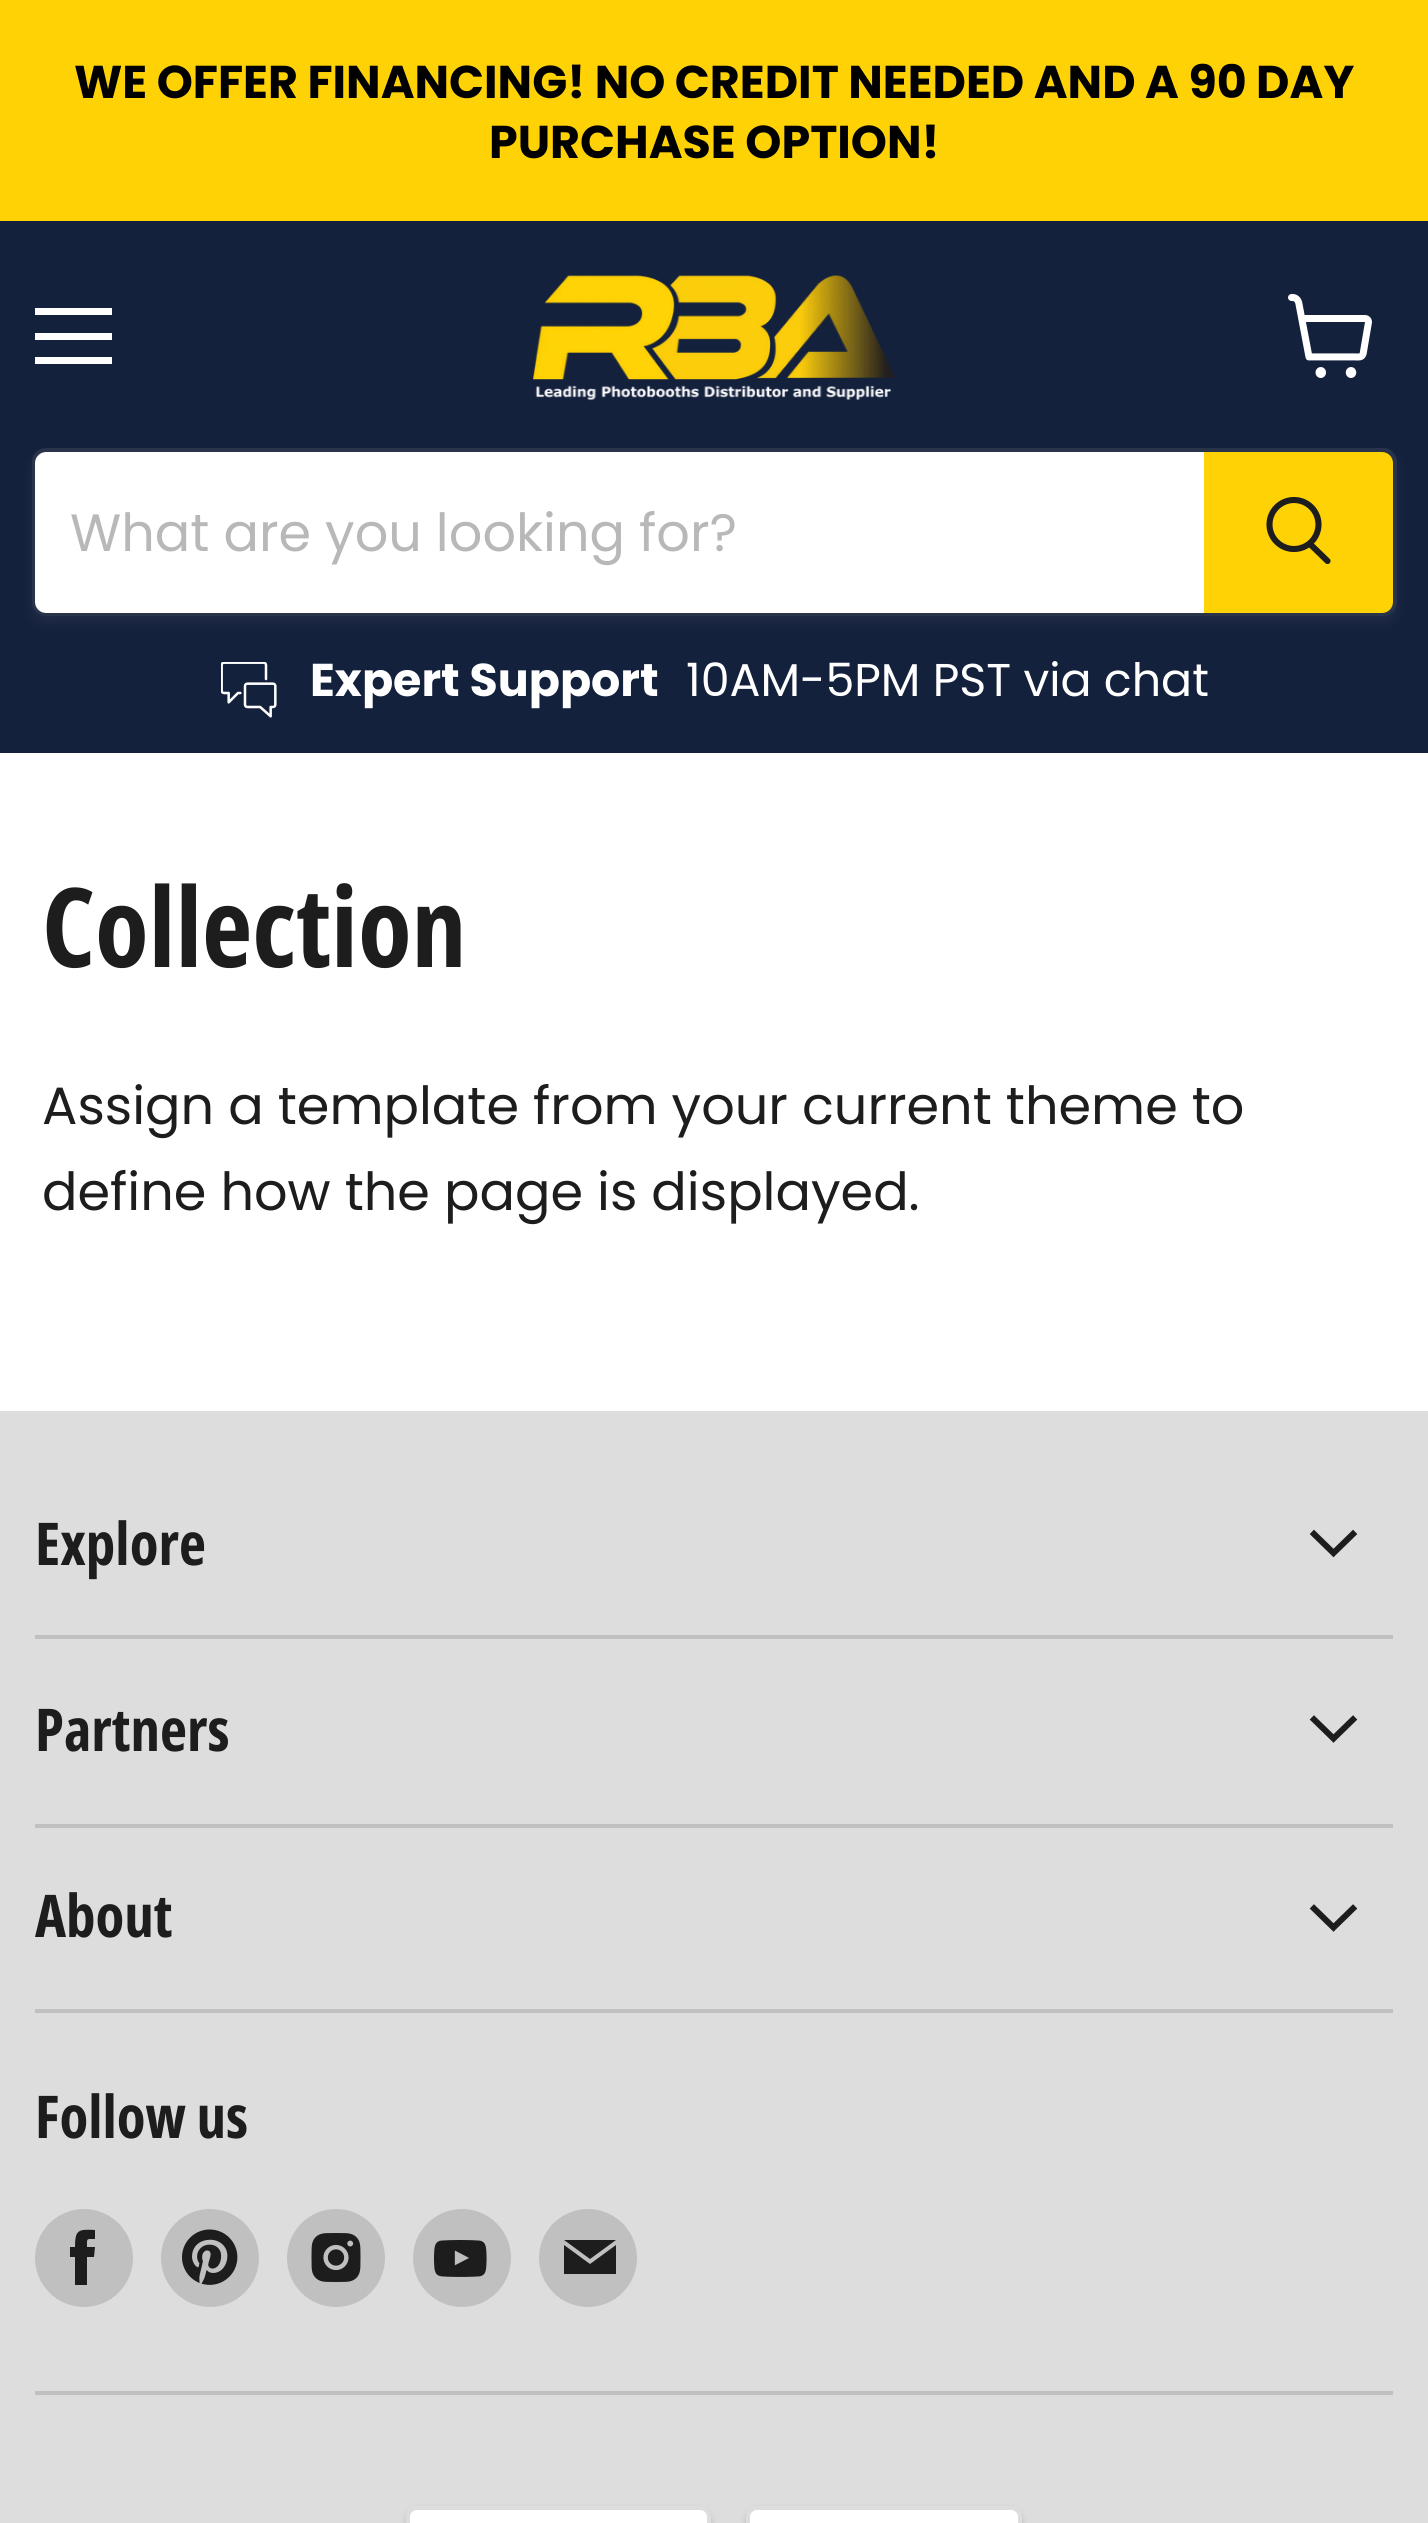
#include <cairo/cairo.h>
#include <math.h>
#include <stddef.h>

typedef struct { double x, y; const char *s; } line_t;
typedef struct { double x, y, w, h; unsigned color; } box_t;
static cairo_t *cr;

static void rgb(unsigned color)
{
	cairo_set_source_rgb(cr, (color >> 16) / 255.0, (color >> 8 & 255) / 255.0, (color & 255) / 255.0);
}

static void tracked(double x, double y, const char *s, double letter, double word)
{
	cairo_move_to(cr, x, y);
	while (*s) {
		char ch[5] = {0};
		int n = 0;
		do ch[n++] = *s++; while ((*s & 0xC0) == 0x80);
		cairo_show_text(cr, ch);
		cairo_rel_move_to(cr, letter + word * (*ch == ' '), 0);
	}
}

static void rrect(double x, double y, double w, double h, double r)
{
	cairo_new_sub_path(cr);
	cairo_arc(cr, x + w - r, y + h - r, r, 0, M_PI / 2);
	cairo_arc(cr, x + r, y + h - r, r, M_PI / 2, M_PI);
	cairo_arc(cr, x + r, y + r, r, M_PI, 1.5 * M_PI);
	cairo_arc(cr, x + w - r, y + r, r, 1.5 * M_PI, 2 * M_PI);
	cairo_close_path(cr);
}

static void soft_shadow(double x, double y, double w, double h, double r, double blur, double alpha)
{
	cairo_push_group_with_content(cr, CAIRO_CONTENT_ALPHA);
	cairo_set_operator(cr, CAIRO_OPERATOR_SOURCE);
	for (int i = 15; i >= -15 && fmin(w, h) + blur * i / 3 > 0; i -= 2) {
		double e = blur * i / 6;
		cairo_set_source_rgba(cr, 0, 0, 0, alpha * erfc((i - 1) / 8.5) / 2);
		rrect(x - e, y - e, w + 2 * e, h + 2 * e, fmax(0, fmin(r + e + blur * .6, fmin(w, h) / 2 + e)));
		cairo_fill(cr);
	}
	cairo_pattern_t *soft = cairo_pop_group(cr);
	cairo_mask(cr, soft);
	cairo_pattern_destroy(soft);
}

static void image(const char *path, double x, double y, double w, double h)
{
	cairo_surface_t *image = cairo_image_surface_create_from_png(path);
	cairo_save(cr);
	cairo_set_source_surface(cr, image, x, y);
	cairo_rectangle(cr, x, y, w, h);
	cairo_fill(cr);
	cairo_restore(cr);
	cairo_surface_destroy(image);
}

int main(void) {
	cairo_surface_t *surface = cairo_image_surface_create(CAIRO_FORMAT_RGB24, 1428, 2523);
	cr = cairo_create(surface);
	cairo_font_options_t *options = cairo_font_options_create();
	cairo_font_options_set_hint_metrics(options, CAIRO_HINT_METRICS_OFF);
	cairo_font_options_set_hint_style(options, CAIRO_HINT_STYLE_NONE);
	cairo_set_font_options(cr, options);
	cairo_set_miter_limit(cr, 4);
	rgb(0xffffff);
	cairo_paint(cr);
	{
		static const box_t items[] = {
			{0, 0, 1428, 221, 0xffd205},
			{0, 221, 1428, 532, 0x14213d},
			{35, 308, 77, 7, 0xffffff},
			{35, 333, 77, 7, 0xffffff},
			{35, 357, 77, 7, 0xffffff},
		};
		for (size_t i = 0; i < sizeof items / sizeof *items; i++) {
			rgb(items[i].color);
			cairo_rectangle(cr, items[i].x, items[i].y, items[i].w, items[i].h);
			cairo_fill(cr);
		}
	}
	image("img/1.png", 1288, 294, 84, 84);
	image("img/2.png", 533, 275, 363, 126);
	cairo_save(cr);
	cairo_set_fill_rule(cr, CAIRO_FILL_RULE_EVEN_ODD);
	cairo_new_path(cr);
	cairo_move_to(cr, 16, 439);
	cairo_line_to(cr, 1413, 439);
	cairo_line_to(cr, 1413, 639);
	cairo_line_to(cr, 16, 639);
	cairo_close_path(cr);
	cairo_move_to(cr, 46, 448);
	cairo_line_to(cr, 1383, 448);
	cairo_curve_to(cr, 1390.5, 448, 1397, 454.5, 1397, 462);
	cairo_line_to(cr, 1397, 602);
	cairo_curve_to(cr, 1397, 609.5, 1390.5, 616, 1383, 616);
	cairo_line_to(cr, 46, 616);
	cairo_curve_to(cr, 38.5, 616, 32, 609.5, 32, 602);
	cairo_line_to(cr, 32, 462);
	cairo_curve_to(cr, 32, 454.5, 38.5, 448, 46, 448);
	cairo_close_path(cr);
	cairo_clip(cr);
	rgb(0x808080);
	soft_shadow(32, 455, 1365, 168, 14, 5, 0.11);
	cairo_restore(cr);
	rrect(34, 450, 1361, 164, 12);
	cairo_set_source_rgba(cr, 0.502, 0.502, 0.502, 0.2);
	cairo_set_line_width(cr, 4);
	cairo_stroke(cr);
	rgb(0xffffff);
	cairo_new_path(cr);
	cairo_move_to(cr, 46, 452);
	cairo_line_to(cr, 1204, 452);
	cairo_line_to(cr, 1204, 613);
	cairo_line_to(cr, 46, 613);
	cairo_curve_to(cr, 40, 613, 35, 608, 35, 602);
	cairo_line_to(cr, 35, 463);
	cairo_curve_to(cr, 35, 457, 40, 452, 46, 452);
	cairo_close_path(cr);
	cairo_fill(cr);
	rgb(0xffd205);
	cairo_new_path(cr);
	cairo_move_to(cr, 1206, 454);
	cairo_line_to(cr, 1382, 454);
	cairo_curve_to(cr, 1387, 454, 1391, 458, 1391, 463);
	cairo_line_to(cr, 1391, 602);
	cairo_curve_to(cr, 1391, 607, 1387, 611, 1382, 611);
	cairo_line_to(cr, 1206, 611);
	cairo_close_path(cr);
	cairo_fill_preserve(cr);
	cairo_stroke(cr);
	cairo_new_path(cr);
	cairo_move_to(cr, 1327.5, 561);
	cairo_line_to(cr, 1310.5, 544.5);
	rgb(0x1d1d1d);
	cairo_set_line_width(cr, 6.1);
	cairo_set_line_cap(cr, CAIRO_LINE_CAP_ROUND);
	cairo_stroke(cr);
	cairo_arc(cr, 1294, 524.5, 24.5, 0, 2 * M_PI);
	cairo_set_line_cap(cr, CAIRO_LINE_CAP_BUTT);
	cairo_stroke(cr);
	image("img/3.png", 221, 662, 56, 56);
	rgb(0xdddddd);
	cairo_rectangle(cr, 0, 1411, 1428, 1112);
	cairo_fill(cr);
	rgb(0xc0c0c0);
	cairo_rectangle(cr, 35, 1635, 1358, 4);
	cairo_fill(cr);
	cairo_new_path(cr);
	cairo_move_to(cr, 1333.5, 1553);
	cairo_line_to(cr, 1353, 1534);
	cairo_move_to(cr, 1333.5, 1553);
	cairo_line_to(cr, 1314, 1534);
	rgb(0x1d1d1d);
	cairo_set_line_cap(cr, CAIRO_LINE_CAP_SQUARE);
	cairo_stroke(cr);
	rgb(0xc0c0c0);
	cairo_rectangle(cr, 35, 1824, 1358, 4);
	cairo_fill(cr);
	cairo_new_path(cr);
	cairo_move_to(cr, 1333.5, 1738.5);
	cairo_line_to(cr, 1353, 1719.5);
	cairo_move_to(cr, 1333.5, 1738.5);
	cairo_line_to(cr, 1314, 1719.5);
	rgb(0x1d1d1d);
	cairo_stroke(cr);
	rgb(0xc0c0c0);
	cairo_rectangle(cr, 35, 2009, 1358, 4);
	cairo_fill(cr);
	cairo_new_path(cr);
	cairo_move_to(cr, 1333.5, 1927.5);
	cairo_line_to(cr, 1353, 1908.5);
	cairo_move_to(cr, 1333.5, 1927.5);
	cairo_line_to(cr, 1314, 1908.5);
	rgb(0x1d1d1d);
	cairo_stroke(cr);
	rgb(0xc0c0c0);
	cairo_rectangle(cr, 35, 2391, 1358, 4);
	cairo_fill(cr);
	cairo_arc(cr, 84, 2258, 49, 0, 2 * M_PI);
	cairo_fill(cr);
	rgb(0x1d1d1d);
	cairo_set_fill_rule(cr, CAIRO_FILL_RULE_EVEN_ODD);
	cairo_new_path(cr);
	cairo_move_to(cr, 94, 2257);
	cairo_line_to(cr, 87, 2257);
	cairo_line_to(cr, 87, 2285);
	cairo_line_to(cr, 75, 2285);
	cairo_line_to(cr, 75, 2257);
	cairo_line_to(cr, 70, 2257);
	cairo_line_to(cr, 70, 2247);
	cairo_line_to(cr, 75, 2247);
	cairo_curve_to(cr, 75, 2230, 78, 2229, 95, 2230);
	cairo_line_to(cr, 95, 2239);
	cairo_curve_to(cr, 86, 2239, 87, 2238, 87, 2247);
	cairo_line_to(cr, 95, 2247);
	cairo_close_path(cr);
	cairo_fill(cr);
	rgb(0xc0c0c0);
	cairo_arc(cr, 210, 2258, 49, 0, 2 * M_PI);
	cairo_fill(cr);
	image("img/4.png", 182, 2229, 56, 56);
	cairo_arc(cr, 336, 2258, 49, 0, 2 * M_PI);
	cairo_fill(cr);
	image("img/5.png", 311, 2233, 50, 49);
	cairo_arc(cr, 462, 2258, 49, 0, 2 * M_PI);
	cairo_fill(cr);
	image("img/6.png", 434, 2240, 53, 37);
	cairo_arc(cr, 588, 2258, 49, 0, 2 * M_PI);
	cairo_fill(cr);
	rgb(0x1d1d1d);
	cairo_new_path(cr);
	cairo_move_to(cr, 616, 2240);
	cairo_line_to(cr, 564, 2240);
	cairo_line_to(cr, 590, 2259);
	cairo_close_path(cr);
	cairo_move_to(cr, 590, 2264);
	cairo_line_to(cr, 564, 2245);
	cairo_line_to(cr, 564, 2274);
	cairo_line_to(cr, 616, 2274);
	cairo_line_to(cr, 616, 2245);
	cairo_close_path(cr);
	cairo_fill(cr);
	rgb(0x000000);
	soft_shadow(406, 2510, 305, 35, 11, 3.5, 0.15);
	rgb(0xffffff);
	rrect(408, 2508, 301, 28, 9);
	cairo_fill_preserve(cr);
	rgb(0xdddddd);
	cairo_set_line_width(cr, 4);
	cairo_set_line_cap(cr, CAIRO_LINE_CAP_BUTT);
	cairo_stroke(cr);
	rgb(0x000000);
	soft_shadow(746, 2510, 276, 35, 11, 3.5, 0.15);
	rgb(0xffffff);
	rrect(748, 2508, 272, 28, 9);
	cairo_fill_preserve(cr);
	rgb(0xdddddd);
	cairo_stroke(cr);
	cairo_select_font_face(cr, "Poppins", CAIRO_FONT_SLANT_NORMAL, CAIRO_FONT_WEIGHT_BOLD);
	cairo_set_font_size(cr, 45.95);
	rgb(0x000000);
	tracked(74, 98, "WE OFFER FINANCING! NO CREDIT NEEDED AND A 90 DAY", 0, -0.25);
	cairo_move_to(cr, 489, 158);
	cairo_show_text(cr, "PURCHASE OPTION!");
	cairo_select_font_face(cr, "Poppins", CAIRO_FONT_SLANT_NORMAL, CAIRO_FONT_WEIGHT_NORMAL);
	cairo_set_font_size(cr, 52.5);
	rgb(0xb8b8b8);
	cairo_move_to(cr, 70, 551);
	cairo_show_text(cr, "What are you looking for?");
	cairo_select_font_face(cr, "Poppins", CAIRO_FONT_SLANT_NORMAL, CAIRO_FONT_WEIGHT_BOLD);
	cairo_set_font_size(cr, 45.95);
	rgb(0xffffff);
	cairo_move_to(cr, 310, 696);
	cairo_show_text(cr, "Expert Support");
	cairo_select_font_face(cr, "Poppins", CAIRO_FONT_SLANT_NORMAL, CAIRO_FONT_WEIGHT_NORMAL);
	cairo_move_to(cr, 686, 696);
	cairo_show_text(cr, "10AM-5PM PST via chat");
	cairo_select_font_face(cr, "Open Sans Condensed", CAIRO_FONT_SLANT_NORMAL, CAIRO_FONT_WEIGHT_BOLD);
	cairo_set_font_size(cr, 110);
	rgb(0x1d1d1d);
	cairo_move_to(cr, 42, 967);
	cairo_show_text(cr, "Collection");
	cairo_select_font_face(cr, "Poppins", CAIRO_FONT_SLANT_NORMAL, CAIRO_FONT_WEIGHT_NORMAL);
	cairo_set_font_size(cr, 52.5);
	cairo_move_to(cr, 42, 1124);
	cairo_show_text(cr, "Assign a template from your current theme to");
	cairo_move_to(cr, 42, 1210);
	cairo_show_text(cr, "define how the page is displayed.");
	cairo_select_font_face(cr, "Open Sans Condensed", CAIRO_FONT_SLANT_NORMAL, CAIRO_FONT_WEIGHT_BOLD);
	cairo_set_font_size(cr, 59);
	{
		static const line_t items[] = {
			{35, 1565, "Explore"},
			{35, 1751, "Partners"},
			{35, 1937, "About"},
			{35, 2138, "Follow us"},
		};
		for (size_t i = 0; i < sizeof items / sizeof *items; i++) {
			cairo_move_to(cr, items[i].x, items[i].y);
			cairo_show_text(cr, items[i].s);
		}
	}
	cairo_surface_write_to_png(surface, "page.png");
	cairo_font_options_destroy(options);
	cairo_destroy(cr);
	cairo_surface_destroy(surface);
	return 0;
}
